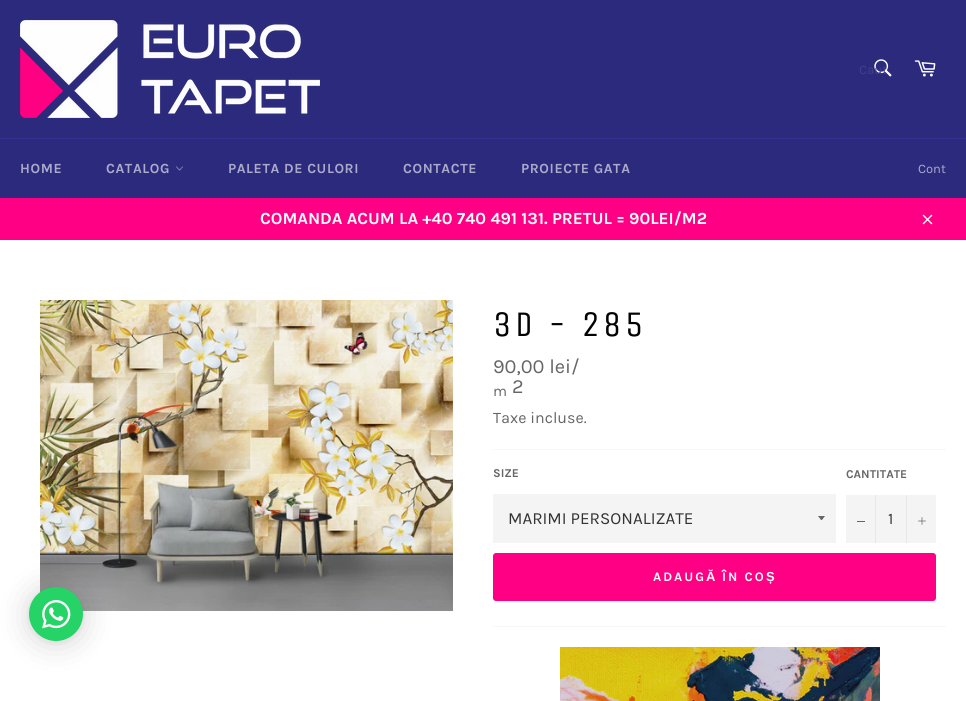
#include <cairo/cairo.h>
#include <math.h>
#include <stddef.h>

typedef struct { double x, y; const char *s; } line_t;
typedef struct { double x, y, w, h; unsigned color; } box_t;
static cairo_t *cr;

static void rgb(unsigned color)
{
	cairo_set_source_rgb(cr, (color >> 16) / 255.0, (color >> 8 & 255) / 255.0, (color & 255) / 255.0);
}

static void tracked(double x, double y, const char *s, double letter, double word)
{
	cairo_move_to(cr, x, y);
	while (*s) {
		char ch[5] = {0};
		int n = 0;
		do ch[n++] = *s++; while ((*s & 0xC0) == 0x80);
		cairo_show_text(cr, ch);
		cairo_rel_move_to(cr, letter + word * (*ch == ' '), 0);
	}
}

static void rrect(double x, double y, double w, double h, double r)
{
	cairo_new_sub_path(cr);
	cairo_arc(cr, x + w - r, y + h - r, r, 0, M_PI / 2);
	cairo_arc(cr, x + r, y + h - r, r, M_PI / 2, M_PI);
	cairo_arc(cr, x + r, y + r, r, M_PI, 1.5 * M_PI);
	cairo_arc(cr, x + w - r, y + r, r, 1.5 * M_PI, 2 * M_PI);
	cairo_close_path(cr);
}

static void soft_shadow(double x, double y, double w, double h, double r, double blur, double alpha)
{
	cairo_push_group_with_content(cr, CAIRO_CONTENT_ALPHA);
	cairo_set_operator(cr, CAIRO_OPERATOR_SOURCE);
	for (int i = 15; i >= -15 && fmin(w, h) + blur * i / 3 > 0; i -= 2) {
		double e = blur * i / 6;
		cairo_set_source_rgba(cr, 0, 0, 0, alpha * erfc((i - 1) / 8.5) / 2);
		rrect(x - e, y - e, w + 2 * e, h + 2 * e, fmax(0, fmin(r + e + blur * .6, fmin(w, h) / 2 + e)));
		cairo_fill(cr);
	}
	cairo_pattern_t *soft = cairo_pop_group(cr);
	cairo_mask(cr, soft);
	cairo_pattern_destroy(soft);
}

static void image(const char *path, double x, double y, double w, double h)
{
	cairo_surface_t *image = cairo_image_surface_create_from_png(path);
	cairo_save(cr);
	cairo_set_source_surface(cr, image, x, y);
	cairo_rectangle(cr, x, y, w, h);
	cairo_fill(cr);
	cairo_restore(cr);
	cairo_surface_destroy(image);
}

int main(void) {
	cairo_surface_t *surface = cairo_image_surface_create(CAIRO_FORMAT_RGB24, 966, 701);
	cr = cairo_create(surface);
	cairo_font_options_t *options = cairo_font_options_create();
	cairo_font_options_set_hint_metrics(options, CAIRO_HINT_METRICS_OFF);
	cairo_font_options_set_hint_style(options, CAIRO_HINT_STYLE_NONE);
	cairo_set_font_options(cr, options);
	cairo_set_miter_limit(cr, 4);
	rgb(0x2c2a7d);
	cairo_paint(cr);
	image("img/1.png", 20, 20, 300, 98);
	image("img/2.png", 874, 59, 18, 18);
	image("img/3.png", 914, 60, 22, 17);
	rgb(0x333090);
	cairo_rectangle(cr, 0, 138, 966, 1);
	cairo_fill(cr);
	image("img/4.png", 176, 166, 7, 5);
	rgb(0xff0084);
	cairo_rectangle(cr, 0, 198, 966, 42);
	cairo_fill(cr);
	image("img/5.png", 922, 214, 11, 11);
	rgb(0xffffff);
	cairo_rectangle(cr, 0, 240, 966, 461);
	cairo_fill(cr);
	image("img/6.png", 40, 300, 413, 311);
	rgb(0xf7f7f7);
	cairo_rectangle(cr, 493, 449, 453, 1);
	cairo_fill(cr);
	rgb(0xf4f4f4);
	cairo_rectangle(cr, 493, 494, 343, 49);
	cairo_fill(cr);
	rgb(0x666666);
	cairo_new_path(cr);
	cairo_move_to(cr, 818, 516);
	cairo_curve_to(cr, 822.5, 521.5, 820.5, 521.5, 825, 516);
	cairo_close_path(cr);
	cairo_fill(cr);
	{
		static const box_t items[] = {
			{846, 495, 90, 48, 0xf4f4f4},
			{875, 495, 1, 48, 0xe7e7e7},
			{857, 521, 8, 1, 0x666666},
			{906, 495, 1, 48, 0xe7e7e7},
		};
		for (size_t i = 0; i < sizeof items / sizeof *items; i++) {
			rgb(items[i].color);
			cairo_rectangle(cr, items[i].x, items[i].y, items[i].w, items[i].h);
			cairo_fill(cr);
		}
	}
	image("img/7.png", 918, 517, 8, 8);
	rgb(0xff0084);
	rrect(493, 553, 443, 48, 3);
	cairo_fill(cr);
	rgb(0xf7f7f7);
	cairo_rectangle(cr, 493, 626, 453, 1);
	cairo_fill(cr);
	image("img/8.png", 560, 647, 320, 54);
	rgb(0x000000);
	soft_shadow(29, 589, 54, 54, 27, 16, 0.16);
	soft_shadow(29, 588, 54, 54, 27, 3, 0.06);
	rgb(0x25d366);
	cairo_arc(cr, 56, 614, 27, 0, 2 * M_PI);
	cairo_fill(cr);
	image("img/9.png", 42, 600, 29, 29);
	cairo_select_font_face(cr, "Karla", CAIRO_FONT_SLANT_NORMAL, CAIRO_FONT_WEIGHT_NORMAL);
	cairo_set_font_size(cr, 13);
	rgb(0x413f8a);
	cairo_move_to(cr, 859, 74);
	cairo_show_text(cr, "Caut");
	cairo_select_font_face(cr, "Karla", CAIRO_FONT_SLANT_NORMAL, CAIRO_FONT_WEIGHT_BOLD);
	cairo_set_font_size(cr, 14);
	rgb(0xabaacb);
	{
		static const line_t items[] = {
			{20, 173, "HOME"},
			{106, 173, "CATALOG"},
			{228, 173, "PALETA DE CULORI"},
			{403, 173, "CONTACTE"},
			{521, 173, "PROIECTE GATA"},
		};
		for (size_t i = 0; i < sizeof items / sizeof *items; i++) {
			tracked(items[i].x, items[i].y, items[i].s, 0.6, 0);
		}
	}
	cairo_select_font_face(cr, "Karla", CAIRO_FONT_SLANT_NORMAL, CAIRO_FONT_WEIGHT_NORMAL);
	cairo_set_font_size(cr, 13);
	cairo_move_to(cr, 918, 173);
	cairo_show_text(cr, "Cont");
	cairo_select_font_face(cr, "Karla", CAIRO_FONT_SLANT_NORMAL, CAIRO_FONT_WEIGHT_BOLD);
	cairo_set_font_size(cr, 17);
	rgb(0xffffff);
	cairo_move_to(cr, 260, 224);
	cairo_show_text(cr, "COMANDA ACUM LA +40 740 491 131. PRETUL = 90LEI/M2");
	cairo_select_font_face(cr, "Unica One", CAIRO_FONT_SLANT_NORMAL, CAIRO_FONT_WEIGHT_NORMAL);
	cairo_set_font_size(cr, 36);
	rgb(0x030303);
	tracked(493, 336, "3D - 285", 3.5, 0);
	cairo_select_font_face(cr, "Karla", CAIRO_FONT_SLANT_NORMAL, CAIRO_FONT_WEIGHT_NORMAL);
	cairo_set_font_size(cr, 20);
	rgb(0x666666);
	cairo_move_to(cr, 493, 373);
	cairo_show_text(cr, "90,00 lei/");
	cairo_set_font_size(cr, 15);
	cairo_move_to(cr, 493, 396);
	cairo_show_text(cr, "m");
	cairo_set_font_size(cr, 20);
	cairo_move_to(cr, 512, 393);
	cairo_show_text(cr, "2");
	cairo_set_font_size(cr, 16);
	cairo_move_to(cr, 493, 423);
	cairo_show_text(cr, "Taxe incluse.");
	cairo_select_font_face(cr, "Karla", CAIRO_FONT_SLANT_NORMAL, CAIRO_FONT_WEIGHT_BOLD);
	cairo_set_font_size(cr, 12);
	cairo_move_to(cr, 493, 477);
	cairo_show_text(cr, "SIZE");
	cairo_select_font_face(cr, "Karla", CAIRO_FONT_SLANT_NORMAL, CAIRO_FONT_WEIGHT_NORMAL);
	cairo_set_font_size(cr, 17);
	rgb(0x333333);
	cairo_move_to(cr, 508, 524);
	cairo_show_text(cr, "MARIMI PERSONALIZATE");
	cairo_select_font_face(cr, "Karla", CAIRO_FONT_SLANT_NORMAL, CAIRO_FONT_WEIGHT_BOLD);
	cairo_set_font_size(cr, 12);
	rgb(0x666666);
	cairo_move_to(cr, 846, 478);
	cairo_show_text(cr, "CANTITATE");
	cairo_select_font_face(cr, "Karla", CAIRO_FONT_SLANT_NORMAL, CAIRO_FONT_WEIGHT_NORMAL);
	cairo_set_font_size(cr, 16);
	rgb(0x333333);
	cairo_move_to(cr, 888, 524);
	cairo_show_text(cr, "1");
	cairo_select_font_face(cr, "Karla", CAIRO_FONT_SLANT_NORMAL, CAIRO_FONT_WEIGHT_BOLD);
	cairo_set_font_size(cr, 13);
	rgb(0xffffff);
	tracked(653, 581, "ADAUG", 2, 0);
	cairo_select_font_face(cr, "Liberation Sans", CAIRO_FONT_SLANT_NORMAL, CAIRO_FONT_WEIGHT_BOLD);
	tracked(706, 581, "Ă", 2, 0);
	cairo_select_font_face(cr, "Karla", CAIRO_FONT_SLANT_NORMAL, CAIRO_FONT_WEIGHT_BOLD);
	tracked(722, 581, "ÎN CO", 2, 0);
	cairo_select_font_face(cr, "Liberation Sans", CAIRO_FONT_SLANT_NORMAL, CAIRO_FONT_WEIGHT_BOLD);
	tracked(766, 581, "Ș", 2, 0);
	cairo_surface_write_to_png(surface, "page.png");
	cairo_font_options_destroy(options);
	cairo_destroy(cr);
	cairo_surface_destroy(surface);
	return 0;
}
